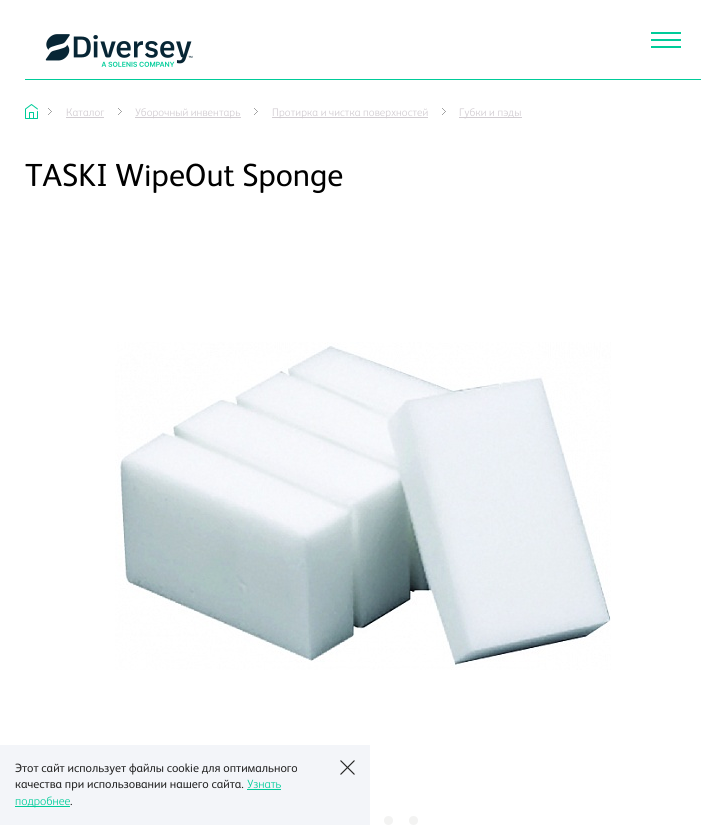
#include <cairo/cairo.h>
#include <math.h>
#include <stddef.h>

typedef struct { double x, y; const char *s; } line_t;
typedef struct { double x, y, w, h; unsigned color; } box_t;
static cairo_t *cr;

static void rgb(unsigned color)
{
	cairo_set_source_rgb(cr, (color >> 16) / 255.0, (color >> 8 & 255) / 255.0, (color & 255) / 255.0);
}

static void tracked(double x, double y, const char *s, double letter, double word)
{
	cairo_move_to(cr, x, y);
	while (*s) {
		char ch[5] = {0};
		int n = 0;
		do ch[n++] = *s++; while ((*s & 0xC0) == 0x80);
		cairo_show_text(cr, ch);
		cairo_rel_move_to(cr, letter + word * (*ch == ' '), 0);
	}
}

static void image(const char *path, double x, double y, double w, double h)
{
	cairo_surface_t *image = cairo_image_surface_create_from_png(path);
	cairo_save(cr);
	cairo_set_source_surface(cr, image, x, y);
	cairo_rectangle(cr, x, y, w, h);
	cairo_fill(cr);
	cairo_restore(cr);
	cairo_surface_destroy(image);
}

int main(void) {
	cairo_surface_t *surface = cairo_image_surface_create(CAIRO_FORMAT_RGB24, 726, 825);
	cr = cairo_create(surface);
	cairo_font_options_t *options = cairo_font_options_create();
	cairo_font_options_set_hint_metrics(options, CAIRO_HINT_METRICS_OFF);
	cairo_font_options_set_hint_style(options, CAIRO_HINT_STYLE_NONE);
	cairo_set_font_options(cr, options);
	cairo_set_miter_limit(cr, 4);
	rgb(0xffffff);
	cairo_paint(cr);
	image("img/1.png", 45, 34, 148, 33);
	image("img/2.png", 651, 32, 30, 16);
	rgb(0x00cc99);
	cairo_rectangle(cr, 25, 79, 676, 1);
	cairo_fill(cr);
	image("img/3.png", 25, 104, 13, 15);
	image("img/4.png", 48, 108, 4, 7);
	rgb(0xd1ccd1);
	cairo_rectangle(cr, 66, 117, 38, 1);
	cairo_fill(cr);
	image("img/4.png", 118, 108, 4, 7);
	cairo_rectangle(cr, 135, 117, 106, 1);
	cairo_fill(cr);
	image("img/4.png", 254, 108, 4, 7);
	cairo_rectangle(cr, 272, 117, 156, 1);
	cairo_fill(cr);
	image("img/4.png", 442, 108, 4, 7);
	cairo_rectangle(cr, 459, 117, 63, 1);
	cairo_fill(cr);
	image("img/5.png", 115, 342, 496, 328);
	rgb(0xf3f3f2);
	cairo_arc(cr, 388.5, 820.5, 4.5, 0, 2 * M_PI);
	cairo_fill(cr);
	cairo_arc(cr, 413.5, 820.5, 4.5, 0, 2 * M_PI);
	cairo_fill(cr);
	{
		static const box_t items[] = {
			{0, 745, 370, 80, 0xf3f5f9},
			{247, 789, 34, 1, 0x00cc99},
			{15, 806, 55, 1, 0x00cc99},
		};
		for (size_t i = 0; i < sizeof items / sizeof *items; i++) {
			rgb(items[i].color);
			cairo_rectangle(cr, items[i].x, items[i].y, items[i].w, items[i].h);
			cairo_fill(cr);
		}
	}
	image("img/6.png", 340, 760, 15, 15);
	cairo_select_font_face(cr, "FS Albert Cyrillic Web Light", CAIRO_FONT_SLANT_NORMAL, CAIRO_FONT_WEIGHT_NORMAL);
	cairo_set_font_size(cr, 11);
	rgb(0xd1ccd1);
	{
		static const line_t items[] = {
			{66, 116, "Каталог"},
			{135, 116, "Уборочный инвентарь"},
			{272, 116, "Протирка и чистка поверхностей"},
			{459, 116, "Губки и пэды"},
		};
		for (size_t i = 0; i < sizeof items / sizeof *items; i++) {
			tracked(items[i].x, items[i].y, items[i].s, 0.1, 0);
		}
	}
	cairo_select_font_face(cr, "FS Albert Cyrillic Web", CAIRO_FONT_SLANT_NORMAL, CAIRO_FONT_WEIGHT_NORMAL);
	cairo_set_font_size(cr, 32);
	rgb(0x000000);
	cairo_move_to(cr, 25, 186);
	cairo_show_text(cr, "TASKI WipeOut Sponge");
	cairo_set_font_size(cr, 12);
	rgb(0x242424);
	cairo_move_to(cr, 15, 772);
	cairo_show_text(cr, "Этот сайт использует файлы cookie для оптимального");
	cairo_move_to(cr, 15, 788);
	cairo_show_text(cr, "качества при использовании нашего сайта.");
	cairo_select_font_face(cr, "FS Albert Cyrillic Web Light", CAIRO_FONT_SLANT_NORMAL, CAIRO_FONT_WEIGHT_NORMAL);
	rgb(0x00cc99);
	cairo_move_to(cr, 247, 788);
	cairo_show_text(cr, "Узнать");
	cairo_move_to(cr, 15, 805);
	cairo_show_text(cr, "подробнее");
	cairo_select_font_face(cr, "FS Albert Cyrillic Web", CAIRO_FONT_SLANT_NORMAL, CAIRO_FONT_WEIGHT_NORMAL);
	rgb(0x242424);
	cairo_move_to(cr, 70, 805);
	cairo_show_text(cr, ".");
	cairo_surface_write_to_png(surface, "page.png");
	cairo_font_options_destroy(options);
	cairo_destroy(cr);
	cairo_surface_destroy(surface);
	return 0;
}
